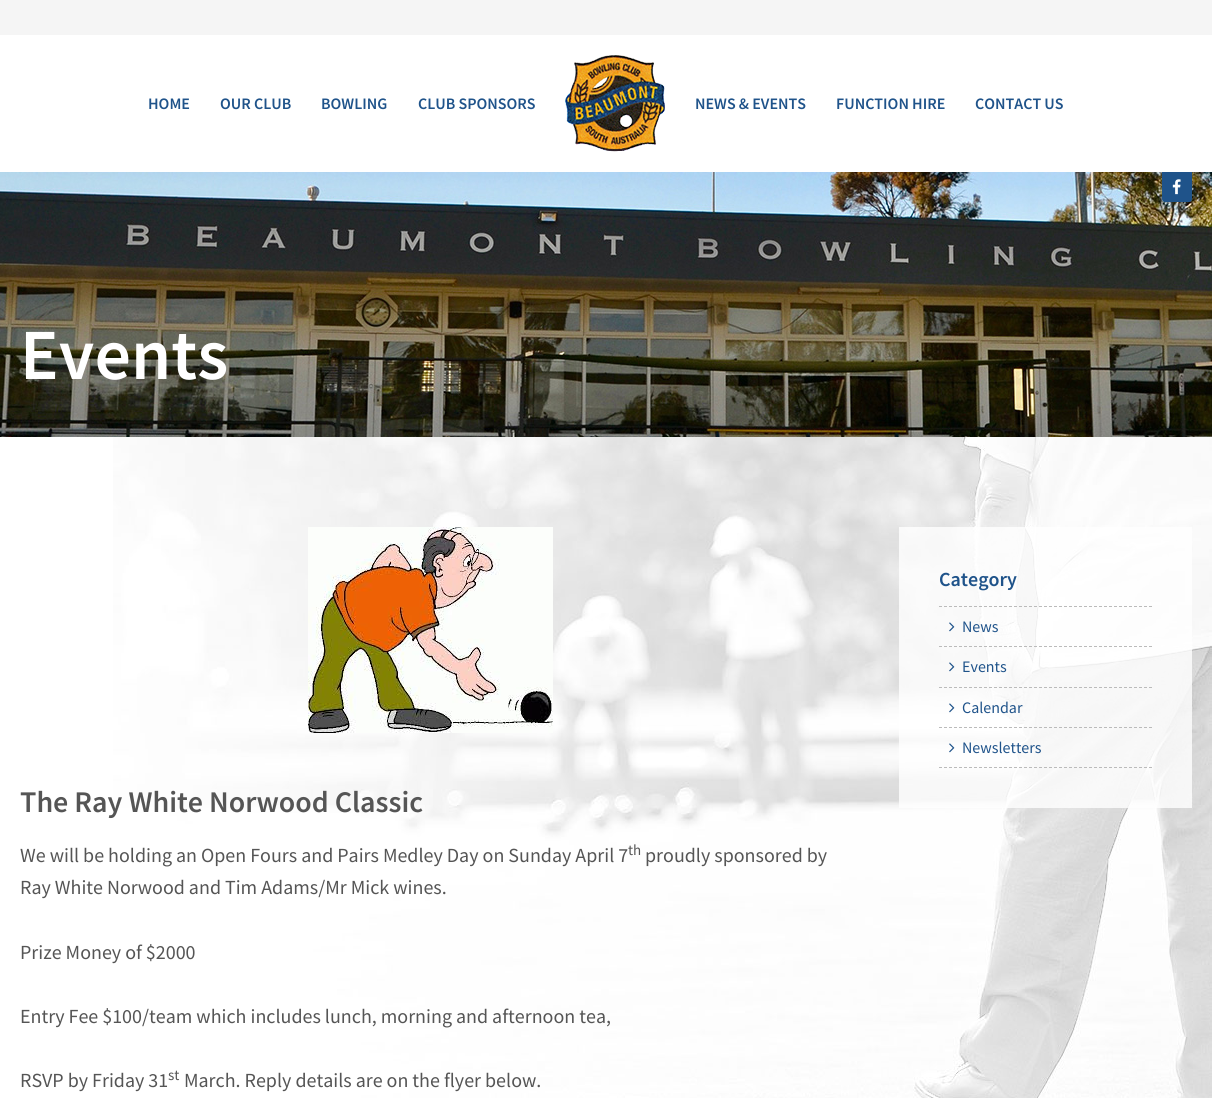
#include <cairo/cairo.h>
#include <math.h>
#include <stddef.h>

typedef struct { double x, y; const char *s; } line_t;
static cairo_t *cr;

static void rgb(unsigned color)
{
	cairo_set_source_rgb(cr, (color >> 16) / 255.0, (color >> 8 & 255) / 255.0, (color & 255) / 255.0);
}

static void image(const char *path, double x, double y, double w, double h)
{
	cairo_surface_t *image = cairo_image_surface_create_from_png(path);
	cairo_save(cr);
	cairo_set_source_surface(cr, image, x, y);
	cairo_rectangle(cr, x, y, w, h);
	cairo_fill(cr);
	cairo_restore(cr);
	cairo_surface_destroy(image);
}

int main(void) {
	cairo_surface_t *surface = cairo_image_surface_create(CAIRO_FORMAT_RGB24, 1212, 1098);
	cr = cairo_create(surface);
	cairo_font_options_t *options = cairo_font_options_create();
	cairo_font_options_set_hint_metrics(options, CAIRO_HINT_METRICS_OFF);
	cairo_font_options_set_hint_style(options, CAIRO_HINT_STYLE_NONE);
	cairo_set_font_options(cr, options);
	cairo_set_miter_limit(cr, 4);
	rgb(0xffffff);
	cairo_paint(cr);
	rgb(0xf5f5f5);
	cairo_rectangle(cr, 0, 0, 1212, 35);
	cairo_fill(cr);
	image("img/1.png", 565, 55, 100, 97);
	image("img/3.png", 0, 172, 1212, 265);
	rgb(0x1f538a);
	cairo_new_path(cr);
	cairo_move_to(cr, 1162, 172);
	cairo_line_to(cr, 1192, 172);
	cairo_line_to(cr, 1192, 199);
	cairo_curve_to(cr, 1192, 200.5, 1190.5, 202, 1189, 202);
	cairo_line_to(cr, 1165, 202);
	cairo_curve_to(cr, 1163.5, 202, 1162, 200.5, 1162, 199);
	cairo_close_path(cr);
	cairo_fill(cr);
	image("img/2.png", 1172, 179, 9, 16);
	image("img/4.png", 113, 437, 1099, 661);
	cairo_set_source_rgba(cr, 1, 1, 1, 0.8);
	cairo_rectangle(cr, 899, 527, 293, 281);
	cairo_fill(cr);
	cairo_new_path(cr);
	cairo_move_to(cr, 939, 606.5);
	cairo_line_to(cr, 1152, 606.5);
	rgb(0xbbbbbb);
	cairo_set_line_width(cr, 1);
	cairo_set_dash(cr, (double[]){3, 2}, 2, 0);
	cairo_stroke(cr);
	cairo_new_path(cr);
	cairo_move_to(cr, 939, 646.5);
	cairo_line_to(cr, 1152, 646.5);
	cairo_stroke(cr);
	image("img/5.png", 949, 622, 6, 10);
	cairo_new_path(cr);
	cairo_move_to(cr, 939, 687.5);
	cairo_line_to(cr, 1152, 687.5);
	cairo_stroke(cr);
	image("img/6.png", 949, 662, 6, 10);
	cairo_new_path(cr);
	cairo_move_to(cr, 939, 727.5);
	cairo_line_to(cr, 1152, 727.5);
	cairo_stroke(cr);
	image("img/7.png", 949, 703, 6, 10);
	cairo_new_path(cr);
	cairo_move_to(cr, 939, 767.5);
	cairo_line_to(cr, 1152, 767.5);
	cairo_stroke(cr);
	image("img/8.png", 949, 743, 6, 10);
	image("img/9.png", 308, 527, 245, 206);
	cairo_select_font_face(cr, "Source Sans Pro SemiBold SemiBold", CAIRO_FONT_SLANT_NORMAL, CAIRO_FONT_WEIGHT_NORMAL);
	cairo_set_font_size(cr, 16);
	rgb(0x1f538a);
	{
		static const line_t items[] = {
			{148, 109, "HOME"},
			{220, 109, "OUR CLUB"},
			{321, 109, "BOWLING"},
			{418, 109, "CLUB SPONSORS"},
			{695, 109, "NEWS & EVENTS"},
			{836, 109, "FUNCTION HIRE"},
			{975, 109, "CONTACT US"},
		};
		for (size_t i = 0; i < sizeof items / sizeof *items; i++) {
			cairo_move_to(cr, items[i].x, items[i].y);
			cairo_show_text(cr, items[i].s);
		}
	}
	cairo_set_font_size(cr, 72);
	rgb(0xffffff);
	cairo_move_to(cr, 20, 379);
	cairo_show_text(cr, "Events");
	cairo_set_font_size(cr, 20);
	rgb(0x1f538a);
	cairo_move_to(cr, 939, 586);
	cairo_show_text(cr, "Category");
	cairo_select_font_face(cr, "Source Sans Pro", CAIRO_FONT_SLANT_NORMAL, CAIRO_FONT_WEIGHT_NORMAL);
	cairo_set_font_size(cr, 16);
	{
		static const line_t items[] = {
			{962, 632, "News"},
			{962, 672, "Events"},
			{962, 713, "Calendar"},
			{962, 753, "Newsletters"},
		};
		for (size_t i = 0; i < sizeof items / sizeof *items; i++) {
			cairo_move_to(cr, items[i].x, items[i].y);
			cairo_show_text(cr, items[i].s);
		}
	}
	cairo_select_font_face(cr, "Source Sans Pro SemiBold SemiBold", CAIRO_FONT_SLANT_NORMAL, CAIRO_FONT_WEIGHT_NORMAL);
	cairo_set_font_size(cr, 30);
	rgb(0x555555);
	cairo_move_to(cr, 20, 812);
	cairo_show_text(cr, "The Ray White Norwood Classic");
	cairo_select_font_face(cr, "Source Sans Pro", CAIRO_FONT_SLANT_NORMAL, CAIRO_FONT_WEIGHT_NORMAL);
	cairo_set_font_size(cr, 20);
	cairo_move_to(cr, 20, 862);
	cairo_show_text(cr, "We will be holding an Open Fours and Pairs Medley Day on Sunday April 7");
	cairo_set_font_size(cr, 15);
	cairo_move_to(cr, 628, 855);
	cairo_show_text(cr, "th");
	cairo_set_font_size(cr, 20);
	{
		static const line_t items[] = {
			{645, 862, "proudly sponsored by"},
			{20, 894, "Ray White Norwood and Tim Adams/Mr Mick wines."},
			{20, 959, "Prize Money of $2000"},
			{20, 1023, "Entry Fee $100/team which includes lunch, morning and afternoon tea,"},
			{20, 1087, "RSVP by Friday 31"},
		};
		for (size_t i = 0; i < sizeof items / sizeof *items; i++) {
			cairo_move_to(cr, items[i].x, items[i].y);
			cairo_show_text(cr, items[i].s);
		}
	}
	cairo_set_font_size(cr, 15);
	cairo_move_to(cr, 168, 1080);
	cairo_show_text(cr, "st");
	cairo_set_font_size(cr, 20);
	cairo_move_to(cr, 184, 1087);
	cairo_show_text(cr, "March. Reply details are on the flyer below.");
	cairo_surface_write_to_png(surface, "page.png");
	cairo_font_options_destroy(options);
	cairo_destroy(cr);
	cairo_surface_destroy(surface);
	return 0;
}
